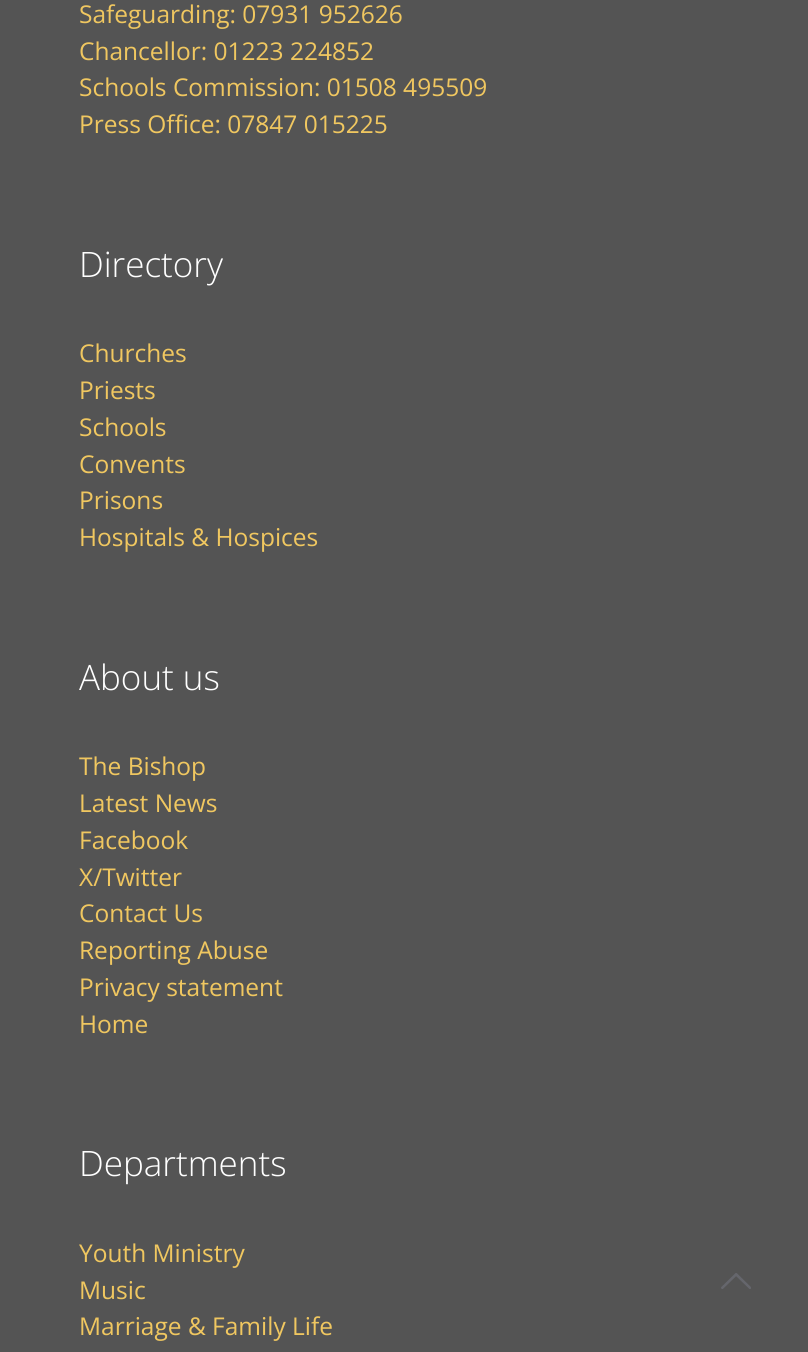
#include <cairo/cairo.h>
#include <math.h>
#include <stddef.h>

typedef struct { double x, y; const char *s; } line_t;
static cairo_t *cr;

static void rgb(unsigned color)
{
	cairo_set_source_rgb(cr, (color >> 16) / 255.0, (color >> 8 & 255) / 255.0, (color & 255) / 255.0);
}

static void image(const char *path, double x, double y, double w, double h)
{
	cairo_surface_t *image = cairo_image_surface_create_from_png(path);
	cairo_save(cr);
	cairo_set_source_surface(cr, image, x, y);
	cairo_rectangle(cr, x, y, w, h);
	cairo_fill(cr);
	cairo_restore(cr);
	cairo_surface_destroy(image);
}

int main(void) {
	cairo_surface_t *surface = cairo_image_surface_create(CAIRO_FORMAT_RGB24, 808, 1352);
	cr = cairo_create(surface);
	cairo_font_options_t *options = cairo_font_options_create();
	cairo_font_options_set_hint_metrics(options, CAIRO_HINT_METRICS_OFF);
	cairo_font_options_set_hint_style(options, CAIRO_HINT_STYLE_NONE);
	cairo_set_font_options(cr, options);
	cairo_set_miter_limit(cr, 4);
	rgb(0x545454);
	cairo_paint(cr);
	image("img/1.png", 721, 1273, 30, 16);
	cairo_select_font_face(cr, "Open Sans", CAIRO_FONT_SLANT_NORMAL, CAIRO_FONT_WEIGHT_NORMAL);
	cairo_set_font_size(cr, 24.5);
	rgb(0xf0c760);
	{
		static const line_t items[] = {
			{79, 23, "Safeguarding: 07931 952626"},
			{79, 60, "Chancellor: 01223 224852"},
			{79, 96, "Schools Commission: 01508 495509"},
			{79, 133, "Press Office: 07847 015225"},
		};
		for (size_t i = 0; i < sizeof items / sizeof *items; i++) {
			cairo_move_to(cr, items[i].x, items[i].y);
			cairo_show_text(cr, items[i].s);
		}
	}
	cairo_select_font_face(cr, "Open Sans Light", CAIRO_FONT_SLANT_NORMAL, CAIRO_FONT_WEIGHT_NORMAL);
	cairo_set_font_size(cr, 35);
	rgb(0xffffff);
	cairo_move_to(cr, 79, 277);
	cairo_show_text(cr, "Directory");
	cairo_select_font_face(cr, "Open Sans", CAIRO_FONT_SLANT_NORMAL, CAIRO_FONT_WEIGHT_NORMAL);
	cairo_set_font_size(cr, 24.5);
	rgb(0xf0c760);
	{
		static const line_t items[] = {
			{79, 362, "Churches"},
			{79, 399, "Priests"},
			{79, 436, "Schools"},
			{79, 473, "Convents"},
			{79, 509, "Prisons"},
			{79, 546, "Hospitals & Hospices"},
		};
		for (size_t i = 0; i < sizeof items / sizeof *items; i++) {
			cairo_move_to(cr, items[i].x, items[i].y);
			cairo_show_text(cr, items[i].s);
		}
	}
	cairo_select_font_face(cr, "Open Sans Light", CAIRO_FONT_SLANT_NORMAL, CAIRO_FONT_WEIGHT_NORMAL);
	cairo_set_font_size(cr, 35);
	rgb(0xffffff);
	cairo_move_to(cr, 79, 690);
	cairo_show_text(cr, "About us");
	cairo_select_font_face(cr, "Open Sans", CAIRO_FONT_SLANT_NORMAL, CAIRO_FONT_WEIGHT_NORMAL);
	cairo_set_font_size(cr, 24.5);
	rgb(0xf0c760);
	{
		static const line_t items[] = {
			{79, 775, "The Bishop"},
			{79, 812, "Latest News"},
			{79, 849, "Facebook"},
			{79, 886, "X/Twitter"},
			{79, 922, "Contact Us"},
			{79, 959, "Reporting Abuse"},
			{79, 996, "Privacy statement"},
			{79, 1033, "Home"},
		};
		for (size_t i = 0; i < sizeof items / sizeof *items; i++) {
			cairo_move_to(cr, items[i].x, items[i].y);
			cairo_show_text(cr, items[i].s);
		}
	}
	cairo_select_font_face(cr, "Open Sans Light", CAIRO_FONT_SLANT_NORMAL, CAIRO_FONT_WEIGHT_NORMAL);
	cairo_set_font_size(cr, 35);
	rgb(0xffffff);
	cairo_move_to(cr, 79, 1176);
	cairo_show_text(cr, "Departments");
	cairo_select_font_face(cr, "Open Sans", CAIRO_FONT_SLANT_NORMAL, CAIRO_FONT_WEIGHT_NORMAL);
	cairo_set_font_size(cr, 24.5);
	rgb(0xf0c760);
	{
		static const line_t items[] = {
			{79, 1262, "Youth Ministry"},
			{79, 1299, "Music"},
			{79, 1335, "Marriage & Family Life"},
		};
		for (size_t i = 0; i < sizeof items / sizeof *items; i++) {
			cairo_move_to(cr, items[i].x, items[i].y);
			cairo_show_text(cr, items[i].s);
		}
	}
	cairo_surface_write_to_png(surface, "page.png");
	cairo_font_options_destroy(options);
	cairo_destroy(cr);
	cairo_surface_destroy(surface);
	return 0;
}
